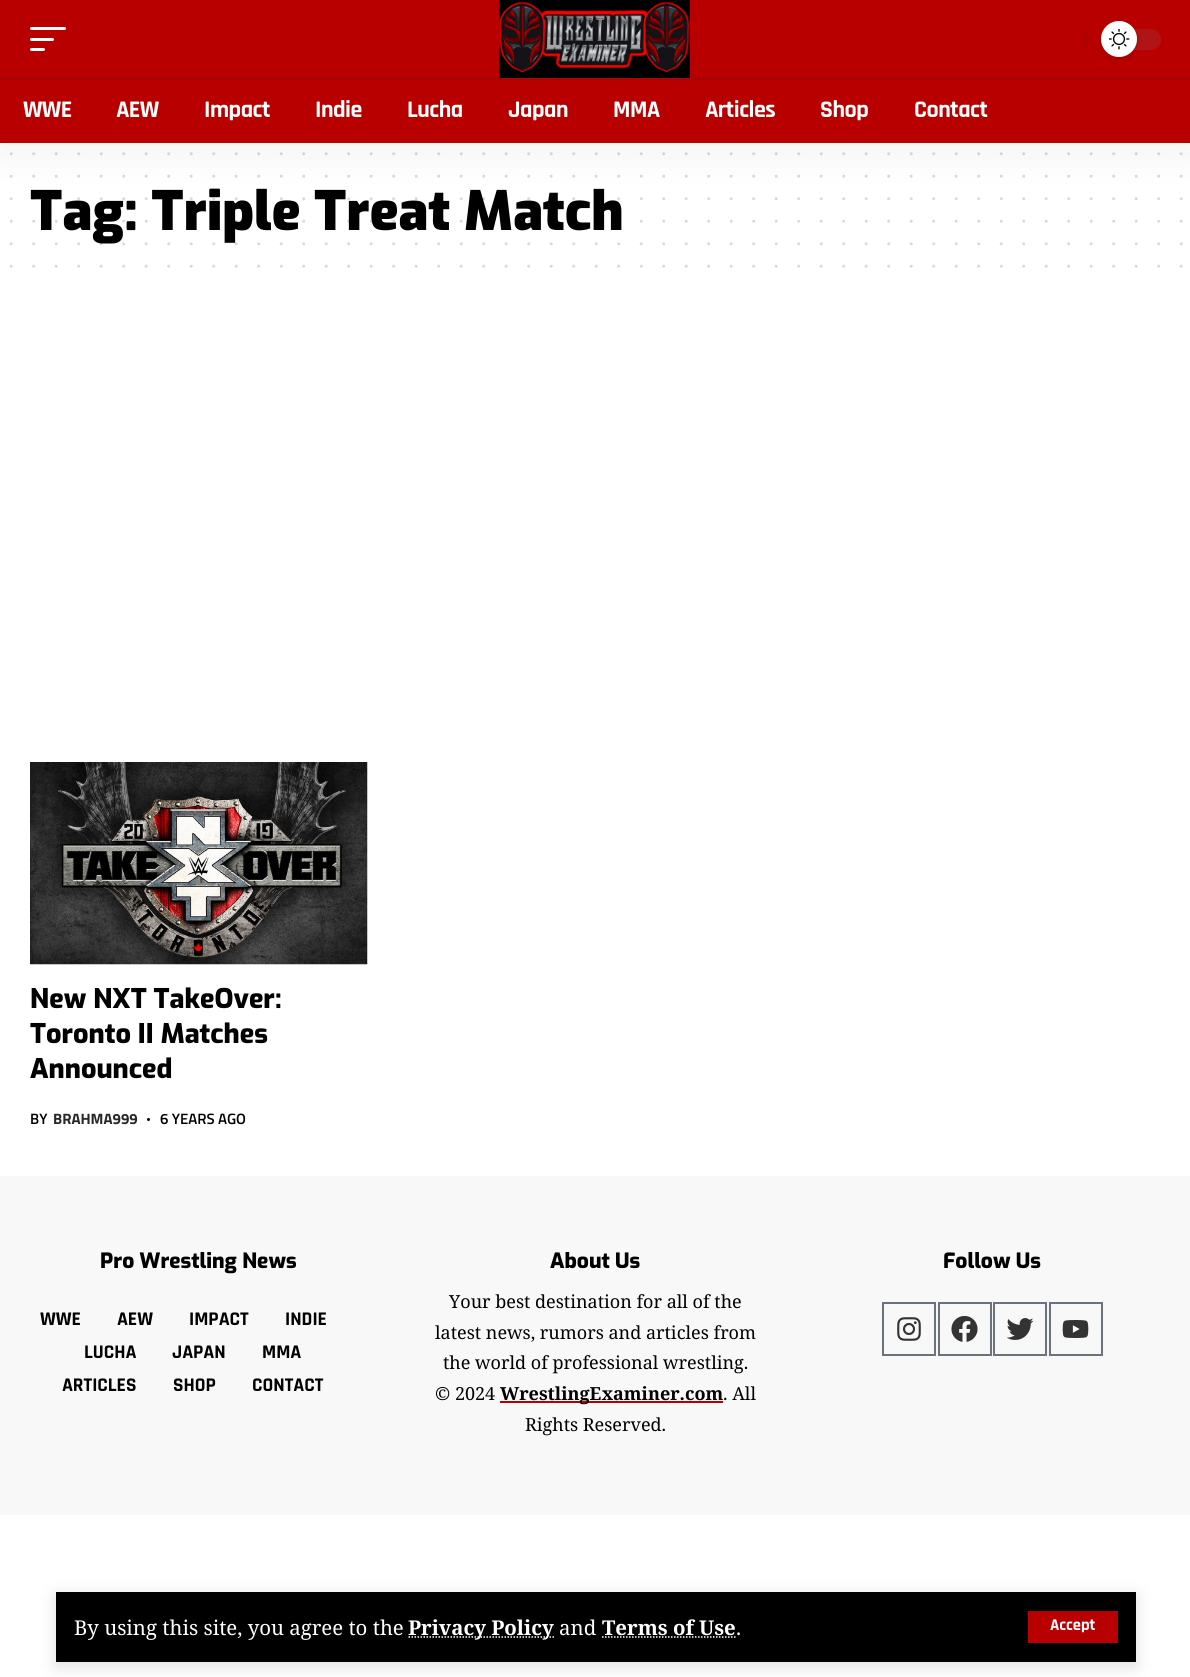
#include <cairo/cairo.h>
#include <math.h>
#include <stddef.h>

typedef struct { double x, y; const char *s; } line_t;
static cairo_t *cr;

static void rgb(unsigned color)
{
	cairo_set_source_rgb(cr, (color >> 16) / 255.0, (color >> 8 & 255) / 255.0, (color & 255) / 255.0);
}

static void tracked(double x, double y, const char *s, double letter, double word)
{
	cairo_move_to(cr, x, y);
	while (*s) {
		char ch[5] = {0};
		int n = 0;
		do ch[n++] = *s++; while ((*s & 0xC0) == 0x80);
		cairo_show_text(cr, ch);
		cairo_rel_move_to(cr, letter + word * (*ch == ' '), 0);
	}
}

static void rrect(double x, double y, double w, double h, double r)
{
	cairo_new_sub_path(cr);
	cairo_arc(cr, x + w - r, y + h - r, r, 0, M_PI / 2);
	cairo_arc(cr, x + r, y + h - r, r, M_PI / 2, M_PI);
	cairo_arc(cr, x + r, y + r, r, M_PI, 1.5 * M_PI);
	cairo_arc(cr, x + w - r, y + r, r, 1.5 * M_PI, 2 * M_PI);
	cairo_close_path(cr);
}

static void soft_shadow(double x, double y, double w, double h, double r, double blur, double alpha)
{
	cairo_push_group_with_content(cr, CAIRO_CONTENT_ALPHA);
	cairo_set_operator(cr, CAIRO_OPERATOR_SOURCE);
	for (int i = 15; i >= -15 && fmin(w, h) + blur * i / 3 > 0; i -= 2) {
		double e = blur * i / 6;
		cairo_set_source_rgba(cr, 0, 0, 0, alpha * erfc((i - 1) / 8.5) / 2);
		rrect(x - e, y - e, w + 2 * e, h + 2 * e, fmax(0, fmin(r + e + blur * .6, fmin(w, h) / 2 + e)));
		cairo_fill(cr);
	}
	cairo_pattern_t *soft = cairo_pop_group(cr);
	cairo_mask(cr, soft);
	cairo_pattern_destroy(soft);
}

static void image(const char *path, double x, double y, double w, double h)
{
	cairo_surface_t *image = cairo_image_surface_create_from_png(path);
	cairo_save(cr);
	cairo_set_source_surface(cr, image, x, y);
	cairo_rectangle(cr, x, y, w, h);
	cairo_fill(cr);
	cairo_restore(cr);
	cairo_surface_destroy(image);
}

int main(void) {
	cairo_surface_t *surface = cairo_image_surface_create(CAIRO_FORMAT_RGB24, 1190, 1677);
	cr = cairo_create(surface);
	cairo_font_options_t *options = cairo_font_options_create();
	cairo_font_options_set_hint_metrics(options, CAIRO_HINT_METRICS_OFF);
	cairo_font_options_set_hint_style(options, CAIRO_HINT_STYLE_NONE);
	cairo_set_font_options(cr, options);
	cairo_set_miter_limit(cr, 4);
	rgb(0xffffff);
	cairo_paint(cr);
	rgb(0x000000);
	soft_shadow(56, 1596, 1080, 71, 0, 9, 0.12);
	rgb(0x000000);
	cairo_rectangle(cr, 56, 1592, 1080, 70);
	cairo_fill(cr);
	cairo_new_path(cr);
	cairo_move_to(cr, 408.5, 1637);
	cairo_line_to(cr, 554, 1637);
	rgb(0xffffff);
	cairo_set_line_width(cr, 1.5);
	cairo_set_dash(cr, (double[]){1.5, 1.5}, 2, 0);
	cairo_stroke(cr);
	cairo_new_path(cr);
	cairo_move_to(cr, 602, 1637);
	cairo_line_to(cr, 735.5, 1637);
	cairo_stroke(cr);
	rgb(0xb80000);
	cairo_rectangle(cr, 1028, 1611, 90, 32);
	cairo_fill(cr);
	cairo_new_path(cr);
	cairo_move_to(cr, 11.2, 153.8);
	cairo_line_to(cr, 1181.6, 153.8);
	rgb(0xd9d9d9);
	cairo_set_line_width(cr, 3);
	cairo_set_line_cap(cr, CAIRO_LINE_CAP_ROUND);
	cairo_set_dash(cr, (double[]){0, 22.5}, 2, 0);
	cairo_stroke(cr);
	cairo_new_path(cr);
	cairo_move_to(cr, 11.2, 176.2);
	cairo_line_to(cr, 1181.6, 176.2);
	cairo_stroke(cr);
	cairo_new_path(cr);
	cairo_move_to(cr, 11.2, 266.2);
	cairo_line_to(cr, 1181.6, 266.2);
	cairo_stroke(cr);
	image("img/3.png", 30, 762, 338, 203);
	rgb(0x000000);
	cairo_arc(cr, 148.5, 1119.5, 1.5, 0, 2 * M_PI);
	cairo_fill(cr);
	rgb(0xf8f8f8);
	cairo_rectangle(cr, 0, 1176, 1190, 339);
	cairo_fill(cr);
	rgb(0xb80000);
	cairo_rectangle(cr, 500, 1401, 223, 2);
	cairo_fill(cr);
	cairo_rectangle(cr, 883, 1303, 52, 52);
	rgb(0x69727d);
	cairo_set_line_width(cr, 2);
	cairo_set_line_cap(cr, CAIRO_LINE_CAP_BUTT);
	cairo_set_dash(cr, NULL, 0, 0);
	cairo_stroke(cr);
	image("img/4.png", 897, 1317, 24, 24);
	cairo_rectangle(cr, 939, 1303, 52, 52);
	cairo_stroke(cr);
	image("img/5.png", 951, 1316, 27, 26);
	cairo_rectangle(cr, 994, 1303, 52, 52);
	cairo_stroke(cr);
	image("img/6.png", 1007, 1318, 27, 22);
	cairo_rectangle(cr, 1050, 1303, 52, 52);
	cairo_stroke(cr);
	image("img/7.png", 1062, 1320, 27, 18);
	cairo_select_font_face(cr, "Noto Serif", CAIRO_FONT_SLANT_NORMAL, CAIRO_FONT_WEIGHT_NORMAL);
	cairo_set_font_size(cr, 20.4);
	rgb(0xffffff);
	cairo_move_to(cr, 74, 1635);
	cairo_show_text(cr, "By using this site, you agree to the");
	cairo_select_font_face(cr, "Noto Serif", CAIRO_FONT_SLANT_NORMAL, CAIRO_FONT_WEIGHT_BOLD);
	cairo_move_to(cr, 408, 1635);
	cairo_show_text(cr, "Privacy Policy");
	cairo_select_font_face(cr, "Noto Serif", CAIRO_FONT_SLANT_NORMAL, CAIRO_FONT_WEIGHT_NORMAL);
	cairo_move_to(cr, 559, 1635);
	cairo_show_text(cr, "and");
	cairo_select_font_face(cr, "Noto Serif", CAIRO_FONT_SLANT_NORMAL, CAIRO_FONT_WEIGHT_BOLD);
	cairo_move_to(cr, 602, 1635);
	cairo_show_text(cr, "Terms of Use");
	cairo_select_font_face(cr, "Noto Serif", CAIRO_FONT_SLANT_NORMAL, CAIRO_FONT_WEIGHT_NORMAL);
	cairo_move_to(cr, 736, 1635);
	cairo_show_text(cr, ".");
	cairo_select_font_face(cr, "Rajdhani", CAIRO_FONT_SLANT_NORMAL, CAIRO_FONT_WEIGHT_BOLD);
	cairo_set_font_size(cr, 16.5);
	cairo_move_to(cr, 1050, 1630);
	cairo_show_text(cr, "Accept");
	cairo_select_font_face(cr, "Exo Black", CAIRO_FONT_SLANT_NORMAL, CAIRO_FONT_WEIGHT_NORMAL);
	cairo_set_font_size(cr, 54);
	rgb(0x000000);
	cairo_move_to(cr, 30, 230);
	cairo_show_text(cr, "Tag: Triple Treat Match");
	cairo_new_path(cr);
	cairo_move_to(cr, 11.2, 198.8);
	cairo_line_to(cr, 1181.6, 198.8);
	cairo_set_source_rgba(cr, 0, 0, 0, 0.15);
	cairo_set_line_width(cr, 3);
	cairo_set_line_cap(cr, CAIRO_LINE_CAP_ROUND);
	cairo_set_dash(cr, (double[]){0, 22.5}, 2, 0);
	cairo_stroke(cr);
	rgb(0x000000);
	soft_shadow(0, 6, 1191, 143, 0, 22.5, 0.07);
	rgb(0xb80000);
	cairo_rectangle(cr, 0, 0, 1190, 143);
	cairo_fill(cr);
	cairo_select_font_face(cr, "Rajdhani", CAIRO_FONT_SLANT_NORMAL, CAIRO_FONT_WEIGHT_BOLD);
	cairo_set_font_size(cr, 24);
	rgb(0xffffff);
	{
		static const line_t items[] = {
			{914, 117, "Contact"},
			{820, 117, "Shop"},
			{705, 117, "Articles"},
			{613, 117, "MMA"},
			{508, 117, "Japan"},
			{407, 117, "Lucha"},
			{315, 117, "Indie"},
			{204, 117, "Impact"},
			{116, 117, "AEW"},
			{23, 117, "WWE"},
		};
		for (size_t i = 0; i < sizeof items / sizeof *items; i++) {
			tracked(items[i].x, items[i].y, items[i].s, -0.5, 0);
		}
	}
	rgb(0xa60505);
	cairo_rectangle(cr, 0, 78, 1190, 2);
	cairo_fill(cr);
	rgb(0xb11414);
	rrect(1101, 29, 60, 21, 10.5);
	cairo_fill(cr);
	rgb(0x000000);
	soft_shadow(1101, 23, 36, 36, 18, 3, 0.12);
	rgb(0xffffff);
	cairo_arc(cr, 1119, 39, 18, 0, 2 * M_PI);
	cairo_fill(cr);
	image("img/2.png", 1109, 29, 21, 21);
	rgb(0xa60505);
	cairo_rectangle(cr, 1085, 29, 2, 21);
	cairo_fill(cr);
	rgb(0xffffff);
	rrect(30, 48, 15, 3, 1.5);
	cairo_fill(cr);
	rrect(30, 38, 24, 3, 1.5);
	cairo_fill(cr);
	rrect(30, 27, 36, 3, 1.5);
	cairo_fill(cr);
	image("img/1.png", 499, 0, 191, 78);
	cairo_new_path(cr);
	cairo_move_to(cr, 11.2, 243.8);
	cairo_line_to(cr, 1181.6, 243.8);
	cairo_set_source_rgba(cr, 0, 0, 0, 0.15);
	cairo_stroke(cr);
	cairo_new_path(cr);
	cairo_move_to(cr, 11.2, 221.2);
	cairo_line_to(cr, 1181.6, 221.2);
	cairo_stroke(cr);
	cairo_select_font_face(cr, "Exo ExtraBold", CAIRO_FONT_SLANT_NORMAL, CAIRO_FONT_WEIGHT_NORMAL);
	cairo_set_font_size(cr, 27);
	rgb(0x000000);
	{
		static const line_t items[] = {
			{30, 1008, "New NXT TakeOver:"},
			{30, 1043, "Toronto II Matches"},
			{30, 1078, "Announced"},
		};
		for (size_t i = 0; i < sizeof items / sizeof *items; i++) {
			cairo_move_to(cr, items[i].x, items[i].y);
			cairo_show_text(cr, items[i].s);
		}
	}
	cairo_select_font_face(cr, "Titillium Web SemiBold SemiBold", CAIRO_FONT_SLANT_NORMAL, CAIRO_FONT_WEIGHT_NORMAL);
	cairo_set_font_size(cr, 15);
	cairo_move_to(cr, 30, 1124);
	cairo_show_text(cr, "BY");
	cairo_select_font_face(cr, "Titillium Web", CAIRO_FONT_SLANT_NORMAL, CAIRO_FONT_WEIGHT_BOLD);
	rgb(0x282828);
	cairo_move_to(cr, 53, 1124);
	cairo_show_text(cr, "BRAHMA999");
	cairo_select_font_face(cr, "Titillium Web SemiBold SemiBold", CAIRO_FONT_SLANT_NORMAL, CAIRO_FONT_WEIGHT_NORMAL);
	rgb(0x000000);
	cairo_move_to(cr, 160, 1124);
	cairo_show_text(cr, "6 YEARS AGO");
	cairo_select_font_face(cr, "Exo ExtraBold", CAIRO_FONT_SLANT_NORMAL, CAIRO_FONT_WEIGHT_NORMAL);
	cairo_set_font_size(cr, 21);
	cairo_move_to(cr, 100, 1268);
	cairo_show_text(cr, "Pro Wrestling News");
	cairo_select_font_face(cr, "Rajdhani", CAIRO_FONT_SLANT_NORMAL, CAIRO_FONT_WEIGHT_BOLD);
	cairo_set_font_size(cr, 19.5);
	{
		static const line_t items[] = {
			{40, 1325, "WWE"},
			{117, 1325, "AEW"},
			{189, 1325, "IMPACT"},
			{285, 1325, "INDIE"},
			{84, 1358, "LUCHA"},
			{172, 1358, "JAPAN"},
			{262, 1358, "MMA"},
			{62, 1391, "ARTICLES"},
			{173, 1391, "SHOP"},
			{252, 1391, "CONTACT"},
		};
		for (size_t i = 0; i < sizeof items / sizeof *items; i++) {
			cairo_move_to(cr, items[i].x, items[i].y);
			cairo_show_text(cr, items[i].s);
		}
	}
	cairo_select_font_face(cr, "Exo ExtraBold", CAIRO_FONT_SLANT_NORMAL, CAIRO_FONT_WEIGHT_NORMAL);
	cairo_set_font_size(cr, 21);
	cairo_move_to(cr, 550, 1268);
	cairo_show_text(cr, "About Us");
	cairo_select_font_face(cr, "Noto Serif", CAIRO_FONT_SLANT_NORMAL, CAIRO_FONT_WEIGHT_NORMAL);
	cairo_set_font_size(cr, 18);
	{
		static const line_t items[] = {
			{449, 1308, "Your best destination for all of the"},
			{435, 1339, "latest news, rumors and articles from"},
			{443, 1369, "the world of professional wrestling."},
			{435, 1400, "© 2024"},
		};
		for (size_t i = 0; i < sizeof items / sizeof *items; i++) {
			cairo_move_to(cr, items[i].x, items[i].y);
			cairo_show_text(cr, items[i].s);
		}
	}
	cairo_select_font_face(cr, "Noto Serif", CAIRO_FONT_SLANT_NORMAL, CAIRO_FONT_WEIGHT_BOLD);
	cairo_move_to(cr, 500, 1400);
	cairo_show_text(cr, "WrestlingExaminer.com");
	cairo_select_font_face(cr, "Noto Serif", CAIRO_FONT_SLANT_NORMAL, CAIRO_FONT_WEIGHT_NORMAL);
	cairo_move_to(cr, 723, 1400);
	cairo_show_text(cr, ". All");
	cairo_move_to(cr, 525, 1431);
	cairo_show_text(cr, "Rights Reserved.");
	cairo_select_font_face(cr, "Exo ExtraBold", CAIRO_FONT_SLANT_NORMAL, CAIRO_FONT_WEIGHT_NORMAL);
	cairo_set_font_size(cr, 21);
	cairo_move_to(cr, 943, 1268);
	cairo_show_text(cr, "Follow Us");
	cairo_surface_write_to_png(surface, "page.png");
	cairo_font_options_destroy(options);
	cairo_destroy(cr);
	cairo_surface_destroy(surface);
	return 0;
}
